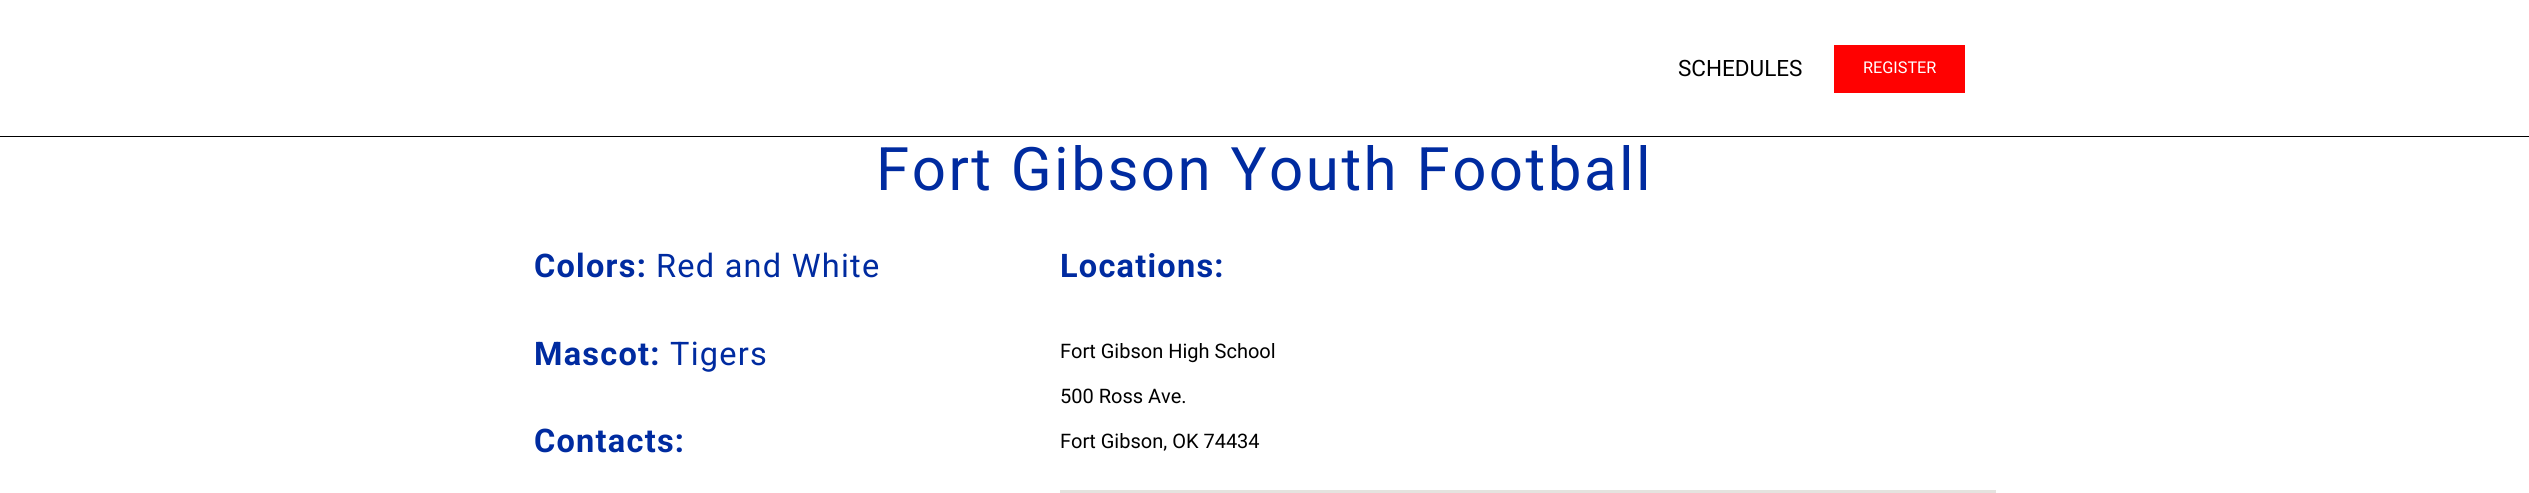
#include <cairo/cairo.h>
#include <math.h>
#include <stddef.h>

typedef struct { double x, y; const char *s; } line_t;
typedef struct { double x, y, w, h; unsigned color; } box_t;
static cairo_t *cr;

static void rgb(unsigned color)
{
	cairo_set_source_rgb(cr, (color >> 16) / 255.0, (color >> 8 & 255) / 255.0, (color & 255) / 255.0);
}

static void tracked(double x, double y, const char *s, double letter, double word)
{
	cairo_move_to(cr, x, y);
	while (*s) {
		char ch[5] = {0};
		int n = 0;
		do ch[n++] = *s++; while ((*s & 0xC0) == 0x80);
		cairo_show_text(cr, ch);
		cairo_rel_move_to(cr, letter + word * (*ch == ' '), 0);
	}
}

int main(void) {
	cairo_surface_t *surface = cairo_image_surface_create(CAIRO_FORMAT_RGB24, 2529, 493);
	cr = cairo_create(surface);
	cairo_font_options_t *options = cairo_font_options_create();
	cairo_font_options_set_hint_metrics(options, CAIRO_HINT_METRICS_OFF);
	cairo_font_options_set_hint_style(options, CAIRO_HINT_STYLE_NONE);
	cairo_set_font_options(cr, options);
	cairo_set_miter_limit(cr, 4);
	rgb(0xffffff);
	cairo_paint(cr);
	{
		static const box_t items[] = {
			{0, 136, 2529, 1, 0x000000},
			{1834, 45, 131, 48, 0xff0101},
			{1060, 490, 936, 3, 0xe5e3df},
		};
		for (size_t i = 0; i < sizeof items / sizeof *items; i++) {
			rgb(items[i].color);
			cairo_rectangle(cr, items[i].x, items[i].y, items[i].w, items[i].h);
			cairo_fill(cr);
		}
	}
	cairo_select_font_face(cr, "Roboto", CAIRO_FONT_SLANT_NORMAL, CAIRO_FONT_WEIGHT_NORMAL);
	cairo_set_font_size(cr, 22.5);
	rgb(0x000000);
	cairo_move_to(cr, 1678, 76);
	cairo_show_text(cr, "SCHEDULES");
	cairo_set_font_size(cr, 16.25);
	rgb(0xffffff);
	cairo_move_to(cr, 1863, 73);
	cairo_show_text(cr, "REGISTER");
	cairo_set_font_size(cr, 60);
	rgb(0x002ba0);
	tracked(876, 190, "Fort Gibson Youth Football", 2.5, 0);
	cairo_select_font_face(cr, "Roboto", CAIRO_FONT_SLANT_NORMAL, CAIRO_FONT_WEIGHT_BOLD);
	cairo_set_font_size(cr, 32.5);
	tracked(534, 277, "Colors:", 1.25, 0);
	cairo_select_font_face(cr, "Roboto", CAIRO_FONT_SLANT_NORMAL, CAIRO_FONT_WEIGHT_NORMAL);
	tracked(656, 277, "Red and White", 1.25, 0);
	cairo_select_font_face(cr, "Roboto", CAIRO_FONT_SLANT_NORMAL, CAIRO_FONT_WEIGHT_BOLD);
	tracked(534, 365, "Mascot:", 1.25, 0);
	cairo_select_font_face(cr, "Roboto", CAIRO_FONT_SLANT_NORMAL, CAIRO_FONT_WEIGHT_NORMAL);
	tracked(670, 365, "Tigers", 1.25, 0);
	cairo_select_font_face(cr, "Roboto", CAIRO_FONT_SLANT_NORMAL, CAIRO_FONT_WEIGHT_BOLD);
	tracked(534, 452, "Contacts:", 1.25, 0);
	tracked(1060, 277, "Locations:", 1.25, 0);
	cairo_select_font_face(cr, "Roboto", CAIRO_FONT_SLANT_NORMAL, CAIRO_FONT_WEIGHT_NORMAL);
	cairo_set_font_size(cr, 20);
	rgb(0x000000);
	{
		static const line_t items[] = {
			{1060, 358, "Fort Gibson High School"},
			{1060, 403, "500 Ross Ave."},
			{1060, 448, "Fort Gibson, OK 74434"},
		};
		for (size_t i = 0; i < sizeof items / sizeof *items; i++) {
			cairo_move_to(cr, items[i].x, items[i].y);
			cairo_show_text(cr, items[i].s);
		}
	}
	cairo_surface_write_to_png(surface, "page.png");
	cairo_font_options_destroy(options);
	cairo_destroy(cr);
	cairo_surface_destroy(surface);
	return 0;
}
